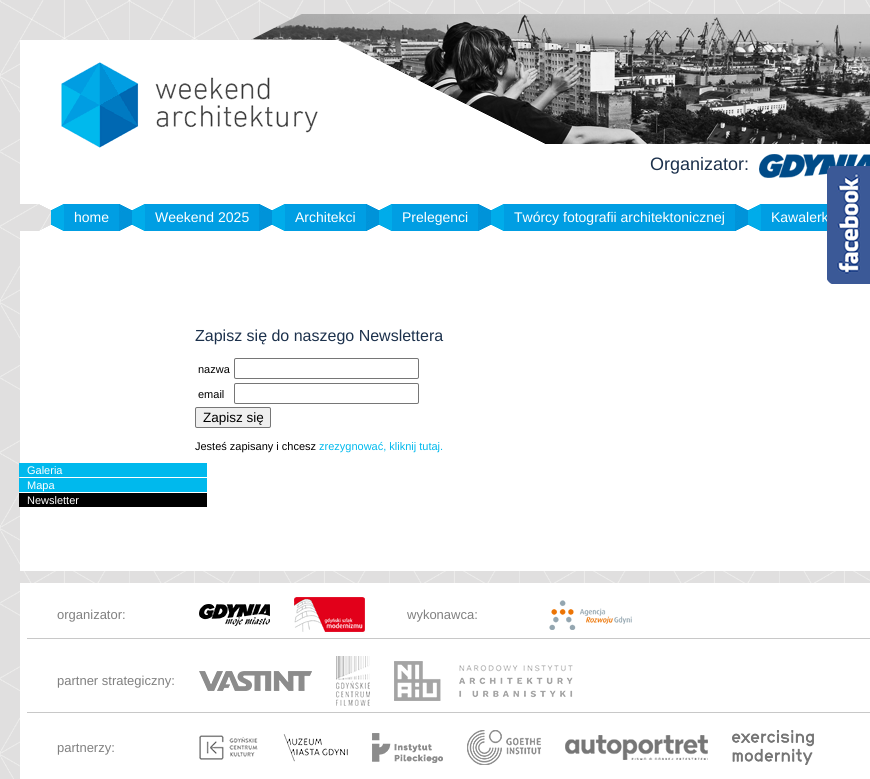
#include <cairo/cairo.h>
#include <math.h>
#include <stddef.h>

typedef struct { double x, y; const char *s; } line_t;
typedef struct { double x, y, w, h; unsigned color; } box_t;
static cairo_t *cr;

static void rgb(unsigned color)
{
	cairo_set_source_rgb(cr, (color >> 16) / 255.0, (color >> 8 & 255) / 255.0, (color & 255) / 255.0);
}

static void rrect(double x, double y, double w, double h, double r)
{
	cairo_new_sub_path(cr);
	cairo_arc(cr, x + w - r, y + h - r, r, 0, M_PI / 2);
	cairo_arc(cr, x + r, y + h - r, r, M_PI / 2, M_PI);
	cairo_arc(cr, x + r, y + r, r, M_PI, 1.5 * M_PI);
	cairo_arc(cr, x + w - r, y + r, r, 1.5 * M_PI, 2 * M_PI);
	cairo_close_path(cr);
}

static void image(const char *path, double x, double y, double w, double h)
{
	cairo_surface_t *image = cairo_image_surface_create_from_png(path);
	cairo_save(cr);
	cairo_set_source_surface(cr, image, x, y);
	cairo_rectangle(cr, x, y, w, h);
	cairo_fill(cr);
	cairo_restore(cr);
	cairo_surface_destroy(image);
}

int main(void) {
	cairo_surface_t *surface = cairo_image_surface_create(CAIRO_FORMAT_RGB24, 870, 779);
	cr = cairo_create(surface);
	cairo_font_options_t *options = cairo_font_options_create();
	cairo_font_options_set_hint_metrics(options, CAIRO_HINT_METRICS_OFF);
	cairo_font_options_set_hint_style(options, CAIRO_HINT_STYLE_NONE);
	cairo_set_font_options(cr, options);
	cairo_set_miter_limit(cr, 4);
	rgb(0xffffff);
	cairo_paint(cr);
	image("img/1.png", 0, 0, 870, 779);
	rgb(0xffffff);
	cairo_rectangle(cr, 20, 40, 317, 104);
	cairo_fill(cr);
	image("img/2.png", 251, 14, 619, 130);
	cairo_rectangle(cr, 20, 144, 850, 60);
	cairo_fill(cr);
	image("img/3.png", 61, 62, 257, 86);
	image("img/4.png", 337, 40, 208, 104);
	image("img/5.png", 759, 154, 111, 24);
	image("img/6.png", 39, 204, 12, 27);
	image("img/7.png", 51, 204, 13, 27);
	rgb(0x009ee3);
	cairo_rectangle(cr, 64, 204, 55, 27);
	cairo_fill(cr);
	image("img/8.png", 119, 204, 13, 27);
	image("img/7.png", 132, 204, 13, 27);
	cairo_rectangle(cr, 145, 204, 114, 27);
	cairo_fill(cr);
	image("img/8.png", 259, 204, 13, 27);
	image("img/7.png", 272, 204, 13, 27);
	cairo_rectangle(cr, 285, 204, 81, 27);
	cairo_fill(cr);
	image("img/8.png", 366, 204, 13, 27);
	image("img/7.png", 379, 204, 13, 27);
	cairo_rectangle(cr, 392, 204, 86, 27);
	cairo_fill(cr);
	image("img/8.png", 478, 204, 13, 27);
	image("img/7.png", 491, 204, 13, 27);
	cairo_rectangle(cr, 504, 204, 231, 27);
	cairo_fill(cr);
	image("img/8.png", 735, 204, 13, 27);
	image("img/7.png", 748, 204, 13, 27);
	cairo_rectangle(cr, 761, 204, 66, 27);
	cairo_fill(cr);
	rgb(0xffffff);
	cairo_rectangle(cr, 20, 231, 850, 340);
	cairo_fill(cr);
	rrect(234.5, 358.5, 184, 20, 1.5);
	rgb(0x767676);
	cairo_set_line_width(cr, 1);
	cairo_stroke(cr);
	rrect(234.5, 383.5, 184, 20, 1.5);
	cairo_stroke(cr);
	rgb(0xefefef);
	rrect(195.5, 407.5, 75, 20, 1.5);
	cairo_fill_preserve(cr);
	rgb(0x767676);
	cairo_stroke(cr);
	{
		static const box_t items[] = {
			{19, 463, 188, 14, 0x00b9ed},
			{19, 478, 188, 14, 0x00b9ed},
			{19, 493, 188, 14, 0x000000},
			{20, 583, 850, 196, 0xffffff},
		};
		for (size_t i = 0; i < sizeof items / sizeof *items; i++) {
			rgb(items[i].color);
			cairo_rectangle(cr, items[i].x, items[i].y, items[i].w, items[i].h);
			cairo_fill(cr);
		}
	}
	image("img/9.png", 199, 604, 71, 22);
	image("img/10.png", 294, 597, 71, 35);
	image("img/11.png", 549, 600, 83, 30);
	rgb(0xc8c8c8);
	cairo_rectangle(cr, 27, 638, 843, 1);
	cairo_fill(cr);
	image("img/12.png", 199, 671, 113, 20);
	image("img/13.png", 336, 656, 34, 50);
	image("img/14.png", 394, 661, 179, 40);
	cairo_rectangle(cr, 27, 712, 843, 1);
	cairo_fill(cr);
	image("img/15.png", 199, 735, 59, 25);
	image("img/16.png", 283, 734, 65, 28);
	image("img/17.png", 372, 733, 71, 30);
	image("img/18.png", 467, 730, 74, 35);
	image("img/19.png", 565, 735, 143, 25);
	image("img/20.png", 732, 730, 82, 35);
	cairo_select_font_face(cr, "Liberation Sans", CAIRO_FONT_SLANT_NORMAL, CAIRO_FONT_WEIGHT_NORMAL);
	cairo_set_font_size(cr, 18);
	rgb(0x1c314c);
	cairo_move_to(cr, 650, 170);
	cairo_show_text(cr, "Organizator:");
	cairo_set_font_size(cr, 14);
	rgb(0xffffff);
	{
		static const line_t items[] = {
			{74, 222, "home"},
			{155, 222, "Weekend 2025"},
			{295, 222, "Architekci"},
			{402, 222, "Prelegenci"},
			{514, 222, "Twórcy fotografii architektonicznej"},
			{771, 222, "Kawalerk"},
		};
		for (size_t i = 0; i < sizeof items / sizeof *items; i++) {
			cairo_move_to(cr, items[i].x, items[i].y);
			cairo_show_text(cr, items[i].s);
		}
	}
	cairo_set_font_size(cr, 16);
	rgb(0x1c314c);
	cairo_move_to(cr, 195, 341);
	cairo_show_text(cr, "Zapisz się do naszego Newslettera");
	cairo_set_font_size(cr, 11);
	rgb(0x000000);
	cairo_move_to(cr, 198, 373);
	cairo_show_text(cr, "nazwa");
	cairo_move_to(cr, 198, 398);
	cairo_show_text(cr, "email");
	cairo_set_font_size(cr, 13.5);
	cairo_move_to(cr, 203, 422);
	cairo_show_text(cr, "Zapisz się");
	cairo_set_font_size(cr, 11);
	cairo_move_to(cr, 195, 450);
	cairo_show_text(cr, "Jesteś zapisany i chcesz");
	rgb(0x00b9ed);
	cairo_move_to(cr, 319, 450);
	cairo_show_text(cr, "zrezygnować, kliknij tutaj.");
	rgb(0xffffff);
	{
		static const line_t items[] = {
			{27, 474, "Galeria"},
			{27, 489, "Mapa"},
			{27, 504, "Newsletter"},
		};
		for (size_t i = 0; i < sizeof items / sizeof *items; i++) {
			cairo_move_to(cr, items[i].x, items[i].y);
			cairo_show_text(cr, items[i].s);
		}
	}
	cairo_set_font_size(cr, 13);
	rgb(0x808080);
	{
		static const line_t items[] = {
			{57, 619, "organizator:"},
			{407, 619, "wykonawca:"},
			{57, 685, "partner strategiczny:"},
			{57, 752, "partnerzy:"},
		};
		for (size_t i = 0; i < sizeof items / sizeof *items; i++) {
			cairo_move_to(cr, items[i].x, items[i].y);
			cairo_show_text(cr, items[i].s);
		}
	}
	image("img/21.png", 827, 166, 43, 118);
	cairo_surface_write_to_png(surface, "page.png");
	cairo_font_options_destroy(options);
	cairo_destroy(cr);
	cairo_surface_destroy(surface);
	return 0;
}
